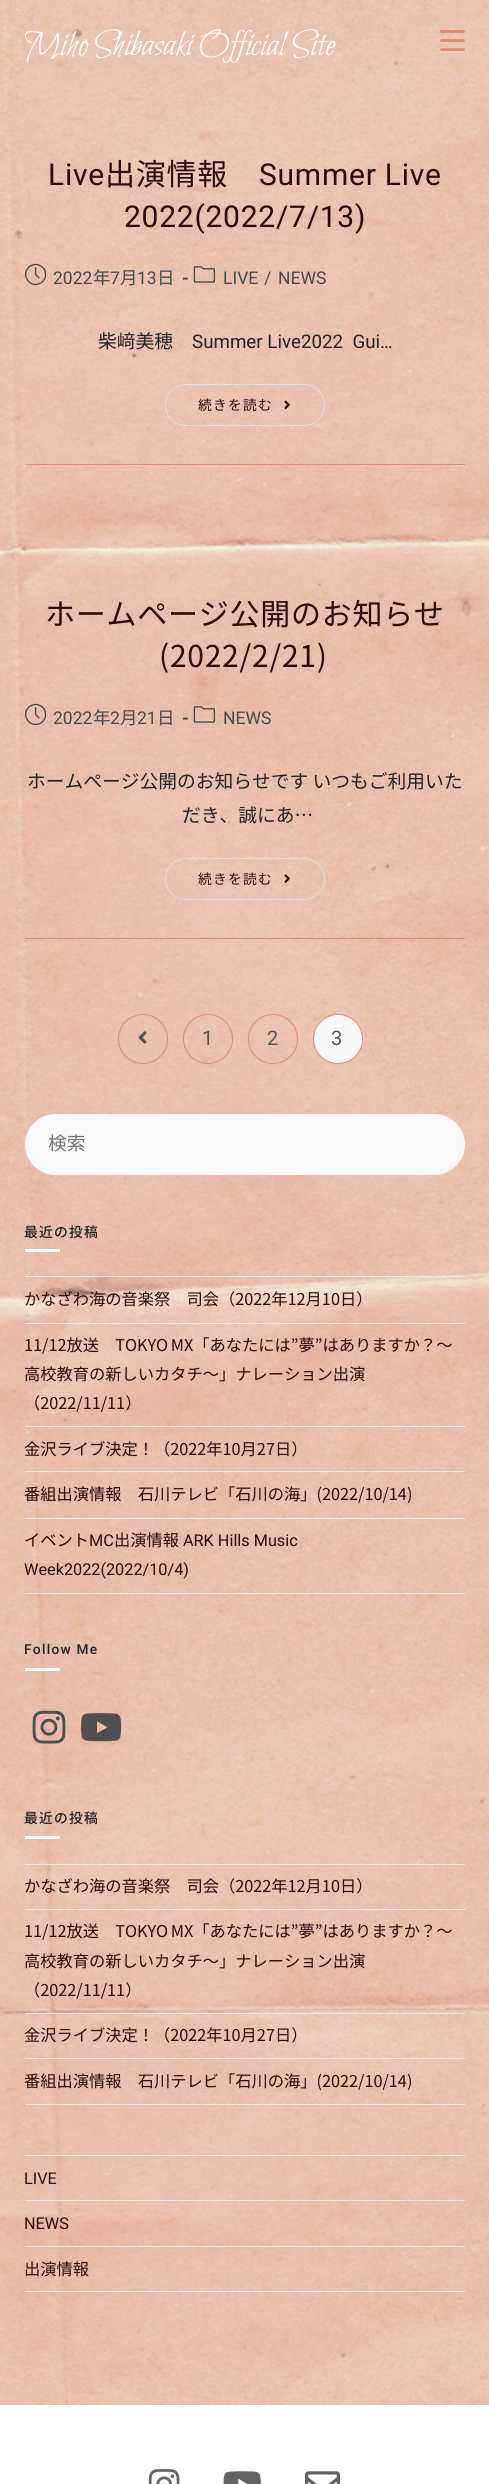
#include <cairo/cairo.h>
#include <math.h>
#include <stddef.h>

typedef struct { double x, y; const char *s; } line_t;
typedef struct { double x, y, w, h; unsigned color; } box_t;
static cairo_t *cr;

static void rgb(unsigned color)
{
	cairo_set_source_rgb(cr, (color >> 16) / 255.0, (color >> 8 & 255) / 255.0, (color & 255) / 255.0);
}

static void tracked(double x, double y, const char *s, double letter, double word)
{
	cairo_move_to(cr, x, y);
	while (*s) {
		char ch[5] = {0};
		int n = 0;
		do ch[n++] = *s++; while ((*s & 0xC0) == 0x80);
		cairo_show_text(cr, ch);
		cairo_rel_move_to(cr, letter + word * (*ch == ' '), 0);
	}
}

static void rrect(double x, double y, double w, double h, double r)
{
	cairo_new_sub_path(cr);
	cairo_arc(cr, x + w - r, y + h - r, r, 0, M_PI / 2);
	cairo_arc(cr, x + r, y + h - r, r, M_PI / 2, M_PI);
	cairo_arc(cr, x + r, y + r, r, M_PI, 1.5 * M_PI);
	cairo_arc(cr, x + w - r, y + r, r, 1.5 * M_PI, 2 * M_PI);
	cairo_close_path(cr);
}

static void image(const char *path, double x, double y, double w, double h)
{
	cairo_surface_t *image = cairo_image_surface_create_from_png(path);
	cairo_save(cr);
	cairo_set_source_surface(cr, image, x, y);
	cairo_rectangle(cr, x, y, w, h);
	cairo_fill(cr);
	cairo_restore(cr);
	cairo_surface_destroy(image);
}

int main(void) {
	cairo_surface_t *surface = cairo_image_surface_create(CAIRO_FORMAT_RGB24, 489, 2484);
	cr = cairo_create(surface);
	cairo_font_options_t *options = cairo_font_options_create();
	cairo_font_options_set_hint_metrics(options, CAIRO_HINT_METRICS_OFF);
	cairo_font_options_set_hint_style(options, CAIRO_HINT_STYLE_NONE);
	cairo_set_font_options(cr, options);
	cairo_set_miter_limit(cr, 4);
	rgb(0xffffff);
	cairo_paint(cr);
	image("img/1.png", 0, 0, 489, 2405);
	rgb(0xdb8e76);
	rrect(440, 48, 25, 3, 1.5);
	cairo_fill(cr);
	rrect(440, 30, 25, 3, 1.5);
	cairo_fill(cr);
	rrect(440, 39, 25, 3, 1.5);
	cairo_fill(cr);
	cairo_rectangle(cr, 25, 464, 440, 1);
	cairo_fill(cr);
	image("img/2.png", 25, 263, 22, 23);
	image("img/3.png", 193, 266, 22, 17);
	rrect(165.5, 384.5, 159, 41, 20.5);
	rgb(0xdddddd);
	cairo_set_line_width(cr, 1);
	cairo_stroke(cr);
	image("img/4.png", 284, 400, 6, 10);
	rgb(0xdb8e76);
	cairo_rectangle(cr, 25, 938, 440, 1);
	cairo_fill(cr);
	image("img/5.png", 25, 703, 22, 23);
	image("img/6.png", 193, 706, 22, 17);
	rrect(165.5, 858.5, 159, 41, 20.5);
	rgb(0xdddddd);
	cairo_stroke(cr);
	image("img/7.png", 284, 874, 6, 9);
	cairo_arc(cr, 143, 1039, 24.5, 0, 2 * M_PI);
	rgb(0xdb8e76);
	cairo_stroke(cr);
	image("img/8.png", 138, 1031, 9, 13);
	cairo_arc(cr, 208, 1039, 24.5, 0, 2 * M_PI);
	cairo_stroke(cr);
	cairo_arc(cr, 273, 1039, 24.5, 0, 2 * M_PI);
	cairo_stroke(cr);
	rgb(0xf8f8f8);
	cairo_arc(cr, 338, 1039, 24.5, 0, 2 * M_PI);
	cairo_fill_preserve(cr);
	rgb(0xdb8e76);
	cairo_stroke(cr);
	rgb(0xf9f9f9);
	rrect(25.5, 1114.5, 439, 60, 30);
	cairo_fill_preserve(cr);
	rgb(0xf5f5f5);
	cairo_stroke(cr);
	{
		static const box_t items[] = {
			{25, 1249, 35, 3, 0xffffff},
			{25, 1276, 440, 1, 0xe9e9e9},
			{25, 1323, 440, 1, 0xe9e9e9},
			{25, 1426, 440, 1, 0xe9e9e9},
			{25, 1471, 440, 1, 0xe9e9e9},
			{25, 1518, 440, 1, 0xe9e9e9},
			{25, 1593, 440, 1, 0xe9e9e9},
			{25, 1668, 35, 3, 0xffffff},
		};
		for (size_t i = 0; i < sizeof items / sizeof *items; i++) {
			rgb(items[i].color);
			cairo_rectangle(cr, items[i].x, items[i].y, items[i].w, items[i].h);
			cairo_fill(cr);
		}
	}
	image("img/9.png", 32, 1710, 34, 34);
	image("img/10.png", 81, 1713, 41, 29);
	{
		static const box_t items[] = {
			{25, 1836, 35, 3, 0xffffff},
			{25, 1864, 440, 1, 0xe9e9e9},
			{25, 1909, 440, 1, 0xe9e9e9},
			{25, 2013, 440, 1, 0xe9e9e9},
			{25, 2058, 440, 1, 0xe9e9e9},
			{25, 2104, 440, 1, 0xe9e9e9},
			{25, 2155, 440, 1, 0xe9e9e9},
			{25, 2200, 440, 1, 0xe9e9e9},
			{25, 2246, 440, 1, 0xe9e9e9},
			{25, 2291, 440, 1, 0xe9e9e9},
		};
		for (size_t i = 0; i < sizeof items / sizeof *items; i++) {
			rgb(items[i].color);
			cairo_rectangle(cr, items[i].x, items[i].y, items[i].w, items[i].h);
			cairo_fill(cr);
		}
	}
	image("img/11.png", 148, 2469, 32, 15);
	image("img/12.png", 223, 2471, 38, 13);
	image("img/13.png", 305, 2471, 35, 13);
	cairo_select_font_face(cr, "Bilbo Swash Caps", CAIRO_FONT_SLANT_NORMAL, CAIRO_FONT_WEIGHT_NORMAL);
	cairo_set_font_size(cr, 37.5);
	rgb(0xffffff);
	cairo_move_to(cr, 24, 55);
	cairo_show_text(cr, "Miho Shibasaki Official Site");
	cairo_select_font_face(cr, "Roboto", CAIRO_FONT_SLANT_NORMAL, CAIRO_FONT_WEIGHT_NORMAL);
	cairo_set_font_size(cr, 30);
	rgb(0x2d0b0b);
	tracked(48, 185, "Live", 0.75, 0);
	cairo_select_font_face(cr, "Noto Sans JP", CAIRO_FONT_SLANT_NORMAL, CAIRO_FONT_WEIGHT_NORMAL);
	tracked(105, 185, "出演情報", 0.75, 0);
	cairo_select_font_face(cr, "Roboto", CAIRO_FONT_SLANT_NORMAL, CAIRO_FONT_WEIGHT_NORMAL);
	tracked(259, 185, "Summer Live", 0.75, 0);
	tracked(124, 227, "2022(2022/7/13)", 0.75, 0);
	cairo_set_font_size(cr, 17.5);
	rgb(0x4a4a4a);
	cairo_move_to(cr, 53, 284);
	cairo_show_text(cr, "2022");
	cairo_select_font_face(cr, "Noto Sans JP", CAIRO_FONT_SLANT_NORMAL, CAIRO_FONT_WEIGHT_NORMAL);
	cairo_move_to(cr, 93, 284);
	cairo_show_text(cr, "年");
	cairo_select_font_face(cr, "Roboto", CAIRO_FONT_SLANT_NORMAL, CAIRO_FONT_WEIGHT_NORMAL);
	cairo_move_to(cr, 110, 284);
	cairo_show_text(cr, "7");
	cairo_select_font_face(cr, "Noto Sans JP", CAIRO_FONT_SLANT_NORMAL, CAIRO_FONT_WEIGHT_NORMAL);
	cairo_move_to(cr, 120, 284);
	cairo_show_text(cr, "月");
	cairo_select_font_face(cr, "Roboto", CAIRO_FONT_SLANT_NORMAL, CAIRO_FONT_WEIGHT_NORMAL);
	cairo_move_to(cr, 137, 284);
	cairo_show_text(cr, "13");
	cairo_select_font_face(cr, "Noto Sans JP", CAIRO_FONT_SLANT_NORMAL, CAIRO_FONT_WEIGHT_NORMAL);
	cairo_move_to(cr, 157, 284);
	cairo_show_text(cr, "日");
	cairo_select_font_face(cr, "Roboto", CAIRO_FONT_SLANT_NORMAL, CAIRO_FONT_WEIGHT_BOLD);
	cairo_move_to(cr, 182, 284);
	cairo_show_text(cr, "-");
	cairo_select_font_face(cr, "Roboto", CAIRO_FONT_SLANT_NORMAL, CAIRO_FONT_WEIGHT_NORMAL);
	{
		static const line_t items[] = {
			{223, 284, "LIVE"},
			{264, 284, "/"},
			{278, 284, "NEWS"},
		};
		for (size_t i = 0; i < sizeof items / sizeof *items; i++) {
			cairo_move_to(cr, items[i].x, items[i].y);
			cairo_show_text(cr, items[i].s);
		}
	}
	cairo_select_font_face(cr, "Noto Sans JP", CAIRO_FONT_SLANT_NORMAL, CAIRO_FONT_WEIGHT_NORMAL);
	cairo_set_font_size(cr, 18.75);
	rgb(0x232323);
	cairo_move_to(cr, 98, 348);
	cairo_show_text(cr, "柴﨑美穂");
	cairo_select_font_face(cr, "Roboto", CAIRO_FONT_SLANT_NORMAL, CAIRO_FONT_WEIGHT_NORMAL);
	cairo_move_to(cr, 192, 348);
	cairo_show_text(cr, "Summer Live2022  Gui…");
	cairo_select_font_face(cr, "Noto Sans JP", CAIRO_FONT_SLANT_NORMAL, CAIRO_FONT_WEIGHT_NORMAL);
	cairo_set_font_size(cr, 13.75);
	rgb(0x2d0b0b);
	tracked(198, 410, "続きを読む", 1.25, 0);
	cairo_set_font_size(cr, 30);
	tracked(45, 625, "ホームページ公開のお知らせ", 0.75, 0);
	tracked(159, 667, "(2022/2/21)", 0.75, 0);
	cairo_select_font_face(cr, "Roboto", CAIRO_FONT_SLANT_NORMAL, CAIRO_FONT_WEIGHT_NORMAL);
	cairo_set_font_size(cr, 17.5);
	rgb(0x4a4a4a);
	cairo_move_to(cr, 53, 724);
	cairo_show_text(cr, "2022");
	cairo_select_font_face(cr, "Noto Sans JP", CAIRO_FONT_SLANT_NORMAL, CAIRO_FONT_WEIGHT_NORMAL);
	cairo_move_to(cr, 93, 724);
	cairo_show_text(cr, "年");
	cairo_select_font_face(cr, "Roboto", CAIRO_FONT_SLANT_NORMAL, CAIRO_FONT_WEIGHT_NORMAL);
	cairo_move_to(cr, 110, 724);
	cairo_show_text(cr, "2");
	cairo_select_font_face(cr, "Noto Sans JP", CAIRO_FONT_SLANT_NORMAL, CAIRO_FONT_WEIGHT_NORMAL);
	cairo_move_to(cr, 120, 724);
	cairo_show_text(cr, "月");
	cairo_select_font_face(cr, "Roboto", CAIRO_FONT_SLANT_NORMAL, CAIRO_FONT_WEIGHT_NORMAL);
	cairo_move_to(cr, 137, 724);
	cairo_show_text(cr, "21");
	cairo_select_font_face(cr, "Noto Sans JP", CAIRO_FONT_SLANT_NORMAL, CAIRO_FONT_WEIGHT_NORMAL);
	cairo_move_to(cr, 157, 724);
	cairo_show_text(cr, "日");
	cairo_select_font_face(cr, "Roboto", CAIRO_FONT_SLANT_NORMAL, CAIRO_FONT_WEIGHT_BOLD);
	cairo_move_to(cr, 182, 724);
	cairo_show_text(cr, "-");
	cairo_select_font_face(cr, "Roboto", CAIRO_FONT_SLANT_NORMAL, CAIRO_FONT_WEIGHT_NORMAL);
	cairo_move_to(cr, 223, 724);
	cairo_show_text(cr, "NEWS");
	cairo_select_font_face(cr, "Noto Sans JP", CAIRO_FONT_SLANT_NORMAL, CAIRO_FONT_WEIGHT_NORMAL);
	cairo_set_font_size(cr, 18.75);
	rgb(0x232323);
	cairo_move_to(cr, 27, 788);
	cairo_show_text(cr, "ホームページ公開のお知らせです いつもご利用いた");
	cairo_move_to(cr, 182, 822);
	cairo_show_text(cr, "だき、誠にあ…");
	cairo_set_font_size(cr, 13.75);
	rgb(0x2d0b0b);
	tracked(198, 884, "続きを読む", 1.25, 0);
	cairo_select_font_face(cr, "Roboto", CAIRO_FONT_SLANT_NORMAL, CAIRO_FONT_WEIGHT_NORMAL);
	cairo_set_font_size(cr, 20);
	rgb(0x555555);
	{
		static const line_t items[] = {
			{202, 1045, "1"},
			{267, 1045, "2"},
			{331, 1045, "3"},
		};
		for (size_t i = 0; i < sizeof items / sizeof *items; i++) {
			cairo_move_to(cr, items[i].x, items[i].y);
			cairo_show_text(cr, items[i].s);
		}
	}
	cairo_select_font_face(cr, "Noto Sans JP", CAIRO_FONT_SLANT_NORMAL, CAIRO_FONT_WEIGHT_NORMAL);
	cairo_set_font_size(cr, 18.75);
	rgb(0x757575);
	cairo_move_to(cr, 48, 1150);
	cairo_show_text(cr, "検索");
	cairo_select_font_face(cr, "Noto Sans JP Medium", CAIRO_FONT_SLANT_NORMAL, CAIRO_FONT_WEIGHT_NORMAL);
	cairo_set_font_size(cr, 13.75);
	rgb(0x232323);
	tracked(24, 1237, "最近の投稿", 1.25, 0);
	cairo_select_font_face(cr, "Noto Sans JP", CAIRO_FONT_SLANT_NORMAL, CAIRO_FONT_WEIGHT_NORMAL);
	cairo_set_font_size(cr, 16.25);
	rgb(0x2d0b0b);
	cairo_move_to(cr, 24, 1305);
	cairo_show_text(cr, "かなざわ海の音楽祭　司会（2022年12月10日）");
	tracked(24, 1351, "11/12放送　TOKYO MX「あなたには”夢”はありますか？〜", 0, -1);
	{
		static const line_t items[] = {
			{24, 1380, "高校教育の新しいカタチ〜」ナレーション出演"},
			{24, 1409, "（2022/11/11）"},
			{24, 1455, "金沢ライブ決定！（2022年10月27日）"},
			{24, 1500, "番組出演情報　石川テレビ「石川の海」(2022/10/14)"},
			{24, 1546, "イベント"},
		};
		for (size_t i = 0; i < sizeof items / sizeof *items; i++) {
			cairo_move_to(cr, items[i].x, items[i].y);
			cairo_show_text(cr, items[i].s);
		}
	}
	cairo_select_font_face(cr, "Roboto", CAIRO_FONT_SLANT_NORMAL, CAIRO_FONT_WEIGHT_NORMAL);
	cairo_move_to(cr, 89, 1546);
	cairo_show_text(cr, "MC");
	cairo_select_font_face(cr, "Noto Sans JP", CAIRO_FONT_SLANT_NORMAL, CAIRO_FONT_WEIGHT_NORMAL);
	cairo_move_to(cr, 114, 1546);
	cairo_show_text(cr, "出演情報");
	cairo_select_font_face(cr, "Roboto", CAIRO_FONT_SLANT_NORMAL, CAIRO_FONT_WEIGHT_NORMAL);
	cairo_move_to(cr, 183, 1546);
	cairo_show_text(cr, "ARK Hills Music");
	cairo_move_to(cr, 24, 1575);
	cairo_show_text(cr, "Week2022(2022/10/4)");
	cairo_select_font_face(cr, "Roboto Medium", CAIRO_FONT_SLANT_NORMAL, CAIRO_FONT_WEIGHT_NORMAL);
	cairo_set_font_size(cr, 13.75);
	rgb(0x232323);
	tracked(24, 1654, "Follow Me", 1.25, 0);
	cairo_select_font_face(cr, "Noto Sans JP Medium", CAIRO_FONT_SLANT_NORMAL, CAIRO_FONT_WEIGHT_NORMAL);
	tracked(24, 1823, "最近の投稿", 1.25, 0);
	cairo_select_font_face(cr, "Noto Sans JP", CAIRO_FONT_SLANT_NORMAL, CAIRO_FONT_WEIGHT_NORMAL);
	cairo_set_font_size(cr, 16.25);
	rgb(0x2d0b0b);
	cairo_move_to(cr, 24, 1892);
	cairo_show_text(cr, "かなざわ海の音楽祭　司会（2022年12月10日）");
	tracked(24, 1937, "11/12放送　TOKYO MX「あなたには”夢”はありますか？〜", 0, -1);
	{
		static const line_t items[] = {
			{24, 1967, "高校教育の新しいカタチ〜」ナレーション出演"},
			{24, 1996, "（2022/11/11）"},
			{24, 2041, "金沢ライブ決定！（2022年10月27日）"},
			{24, 2087, "番組出演情報　石川テレビ「石川の海」(2022/10/14)"},
		};
		for (size_t i = 0; i < sizeof items / sizeof *items; i++) {
			cairo_move_to(cr, items[i].x, items[i].y);
			cairo_show_text(cr, items[i].s);
		}
	}
	cairo_select_font_face(cr, "Roboto", CAIRO_FONT_SLANT_NORMAL, CAIRO_FONT_WEIGHT_NORMAL);
	cairo_move_to(cr, 24, 2184);
	cairo_show_text(cr, "LIVE");
	cairo_move_to(cr, 24, 2229);
	cairo_show_text(cr, "NEWS");
	cairo_select_font_face(cr, "Noto Sans JP", CAIRO_FONT_SLANT_NORMAL, CAIRO_FONT_WEIGHT_NORMAL);
	cairo_move_to(cr, 24, 2275);
	cairo_show_text(cr, "出演情報");
	cairo_surface_write_to_png(surface, "page.png");
	cairo_font_options_destroy(options);
	cairo_destroy(cr);
	cairo_surface_destroy(surface);
	return 0;
}
